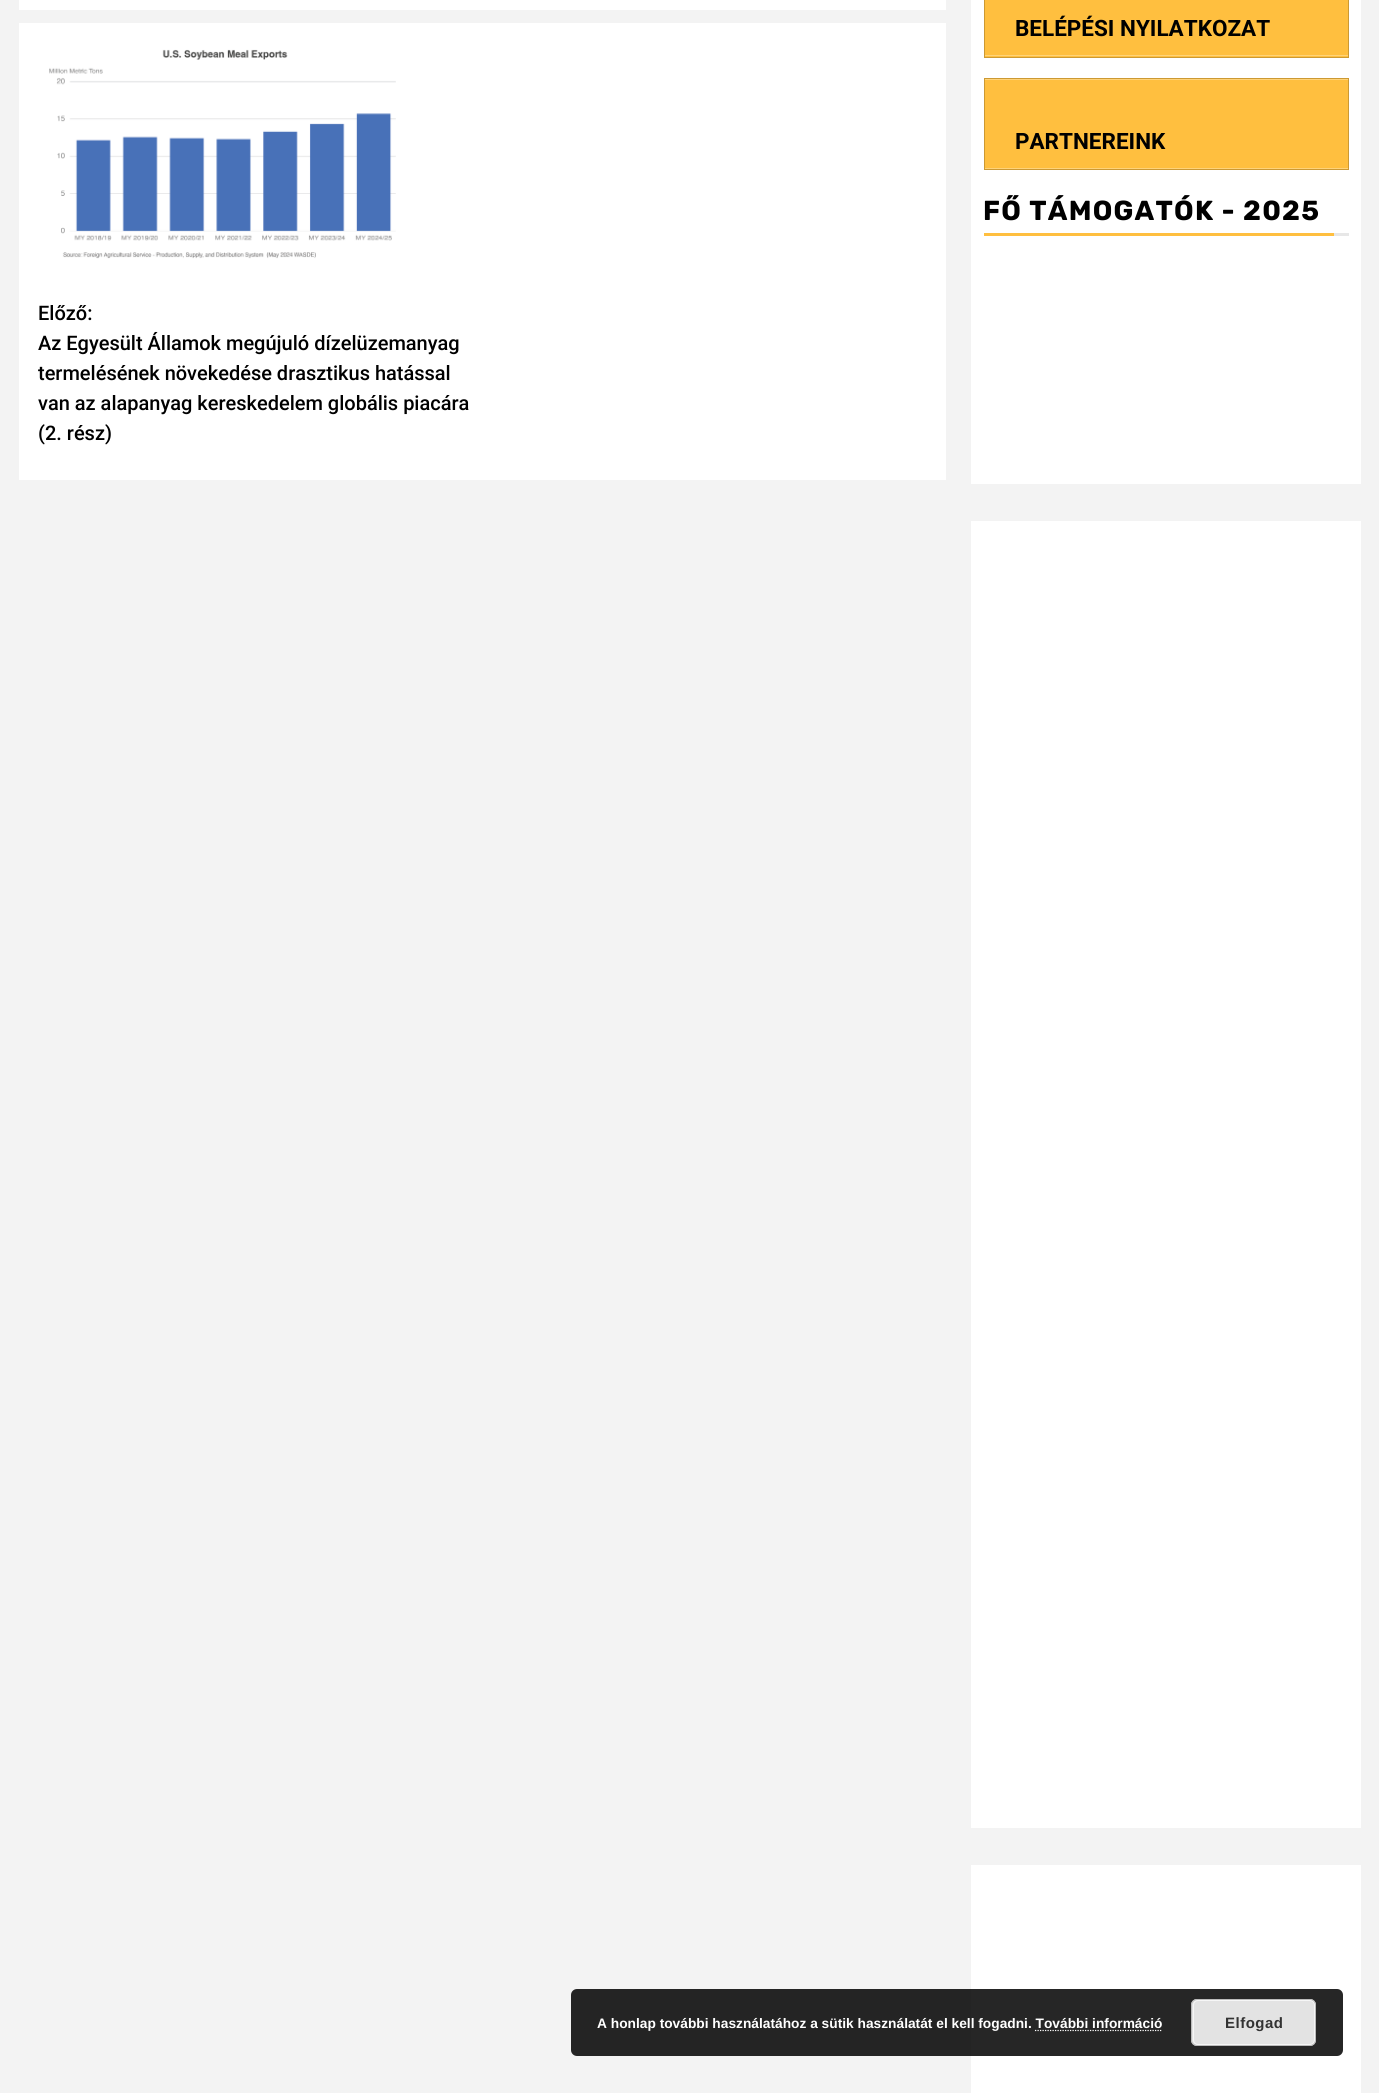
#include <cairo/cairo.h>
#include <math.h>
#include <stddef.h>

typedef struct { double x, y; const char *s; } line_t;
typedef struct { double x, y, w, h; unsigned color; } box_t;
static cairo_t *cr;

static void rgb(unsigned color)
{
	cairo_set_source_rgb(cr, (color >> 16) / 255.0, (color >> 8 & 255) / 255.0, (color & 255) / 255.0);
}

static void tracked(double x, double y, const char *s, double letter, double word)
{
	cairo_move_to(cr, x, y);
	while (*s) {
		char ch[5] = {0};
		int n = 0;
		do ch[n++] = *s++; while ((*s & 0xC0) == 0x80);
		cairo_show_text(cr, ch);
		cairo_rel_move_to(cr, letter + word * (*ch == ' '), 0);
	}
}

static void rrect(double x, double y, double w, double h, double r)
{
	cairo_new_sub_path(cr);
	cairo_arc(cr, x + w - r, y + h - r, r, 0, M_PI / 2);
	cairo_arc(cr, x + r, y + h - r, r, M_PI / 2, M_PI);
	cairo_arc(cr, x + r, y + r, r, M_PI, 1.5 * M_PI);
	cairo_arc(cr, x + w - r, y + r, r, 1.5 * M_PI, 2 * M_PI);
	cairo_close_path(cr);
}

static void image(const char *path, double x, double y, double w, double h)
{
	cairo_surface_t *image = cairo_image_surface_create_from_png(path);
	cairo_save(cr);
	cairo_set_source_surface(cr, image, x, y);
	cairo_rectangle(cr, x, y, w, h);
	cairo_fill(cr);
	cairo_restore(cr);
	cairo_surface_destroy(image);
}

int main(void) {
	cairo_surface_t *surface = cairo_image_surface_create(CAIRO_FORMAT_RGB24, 1379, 2093);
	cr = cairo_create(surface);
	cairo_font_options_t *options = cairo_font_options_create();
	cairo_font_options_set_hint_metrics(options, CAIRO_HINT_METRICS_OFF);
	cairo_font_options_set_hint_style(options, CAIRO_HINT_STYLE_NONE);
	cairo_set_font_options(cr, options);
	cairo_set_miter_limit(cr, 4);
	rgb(0xf3f3f3);
	cairo_paint(cr);
	rgb(0xffffff);
	cairo_rectangle(cr, 971, 0, 390, 484);
	cairo_fill(cr);
	rgb(0xffbf3f);
	cairo_rectangle(cr, 984.5, -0.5, 364, 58);
	cairo_fill_preserve(cr);
	rgb(0xcc9933);
	cairo_set_line_width(cr, 1);
	cairo_stroke(cr);
	rgb(0xffd379);
	cairo_rectangle(cr, 985, 55, 363, 1);
	cairo_fill(cr);
	rgb(0xffbf3f);
	cairo_rectangle(cr, 985, 80, 363, 88);
	cairo_fill(cr);
	cairo_rectangle(cr, 984.5, 78.5, 364, 91);
	rgb(0xcc9933);
	cairo_stroke(cr);
	{
		static const box_t items[] = {
			{985, 79, 363, 1, 0xffd379},
			{985, 168, 363, 1, 0xffd379},
			{984, 233, 350, 3, 0xffbf3f},
			{1334, 233, 15, 3, 0xe7e7e7},
			{971, 521, 390, 1307, 0xffffff},
			{971, 1865, 390, 228, 0xffffff},
			{19, 0, 927, 10, 0xffffff},
			{19, 23, 927, 457, 0xffffff},
		};
		for (size_t i = 0; i < sizeof items / sizeof *items; i++) {
			rgb(items[i].color);
			cairo_rectangle(cr, items[i].x, items[i].y, items[i].w, items[i].h);
			cairo_fill(cr);
		}
	}
	image("img/1.png", 49, 49, 347, 210);
	cairo_set_source_rgba(cr, 0, 0, 0, 0.85);
	rrect(571, 1989, 772, 67, 6);
	cairo_fill(cr);
	rgb(0xe3e3e3);
	rrect(1191, 1999, 125, 47, 6);
	cairo_fill(cr);
	rrect(1193.5, 2000.5, 121, 44, 4.5);
	rgb(0xf6f6f6);
	cairo_stroke(cr);
	rrect(1191.5, 1999.5, 124, 46, 5.5);
	rgb(0xbbbbbb);
	cairo_stroke(cr);
	cairo_new_path(cr);
	cairo_move_to(cr, 1035, 2030.5);
	cairo_line_to(cr, 1162.5, 2030.5);
	rgb(0xffffff);
	cairo_set_line_width(cr, 1.2);
	cairo_set_dash(cr, (double[]){1.25, 1.25}, 2, 0);
	cairo_stroke(cr);
	cairo_select_font_face(cr, "Roboto", CAIRO_FONT_SLANT_NORMAL, CAIRO_FONT_WEIGHT_BOLD);
	cairo_set_font_size(cr, 22.5);
	rgb(0x000000);
	cairo_move_to(cr, 1015, 36);
	cairo_show_text(cr, "BELÉPÉSI NYILATKOZAT");
	cairo_move_to(cr, 1015, 149);
	cairo_show_text(cr, "PARTNEREINK");
	cairo_select_font_face(cr, "Rubik", CAIRO_FONT_SLANT_NORMAL, CAIRO_FONT_WEIGHT_BOLD);
	cairo_set_font_size(cr, 27.5);
	tracked(983, 220, "FŐ TÁMOGATÓK - 2025", 1.25, 0);
	cairo_select_font_face(cr, "Roboto Medium", CAIRO_FONT_SLANT_NORMAL, CAIRO_FONT_WEIGHT_NORMAL);
	cairo_set_font_size(cr, 20);
	{
		static const line_t items[] = {
			{38, 320, "Előző:"},
			{38, 350, "Az Egyesült Államok megújuló dízelüzemanyag"},
			{38, 380, "termelésének növekedése drasztikus hatással"},
			{38, 410, "van az alapanyag kereskedelem globális piacára"},
			{38, 440, "(2. rész)"},
		};
		for (size_t i = 0; i < sizeof items / sizeof *items; i++) {
			cairo_move_to(cr, items[i].x, items[i].y);
			cairo_show_text(cr, items[i].s);
		}
	}
	cairo_select_font_face(cr, "Liberation Sans", CAIRO_FONT_SLANT_NORMAL, CAIRO_FONT_WEIGHT_BOLD);
	cairo_set_font_size(cr, 13.75);
	rgb(0xffffff);
	cairo_move_to(cr, 597, 2028);
	cairo_show_text(cr, "A honlap további használatához a sütik használatát el kell fogadni. További információ");
	cairo_set_font_size(cr, 15);
	rgb(0x333333);
	tracked(1225, 2028, "Elfogad", 0.5, 0);
	cairo_surface_write_to_png(surface, "page.png");
	cairo_font_options_destroy(options);
	cairo_destroy(cr);
	cairo_surface_destroy(surface);
	return 0;
}
